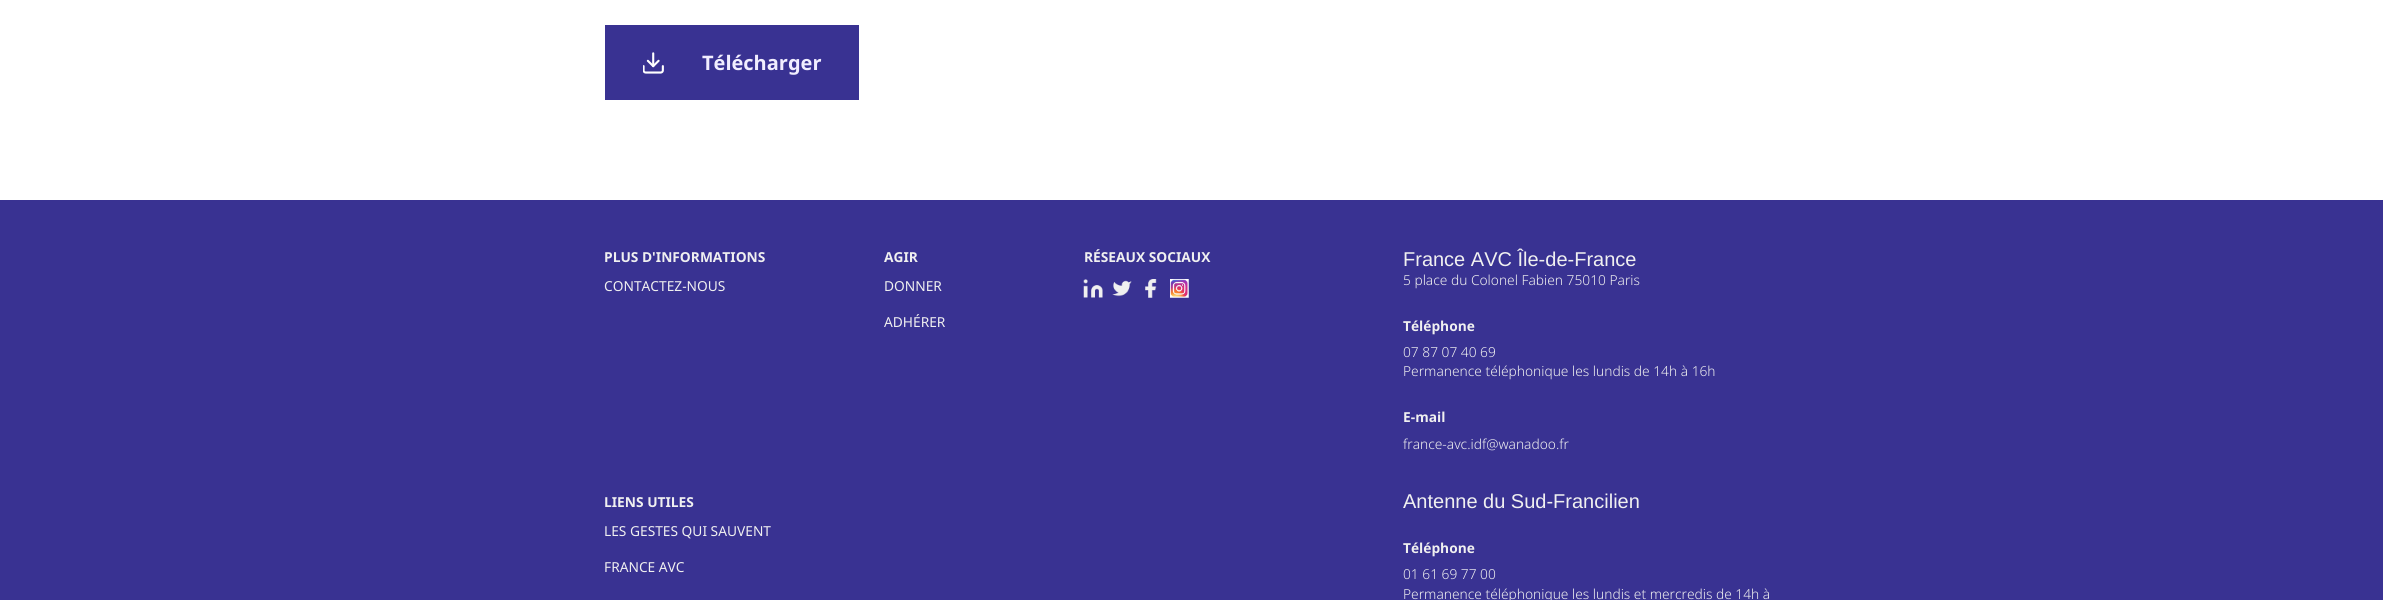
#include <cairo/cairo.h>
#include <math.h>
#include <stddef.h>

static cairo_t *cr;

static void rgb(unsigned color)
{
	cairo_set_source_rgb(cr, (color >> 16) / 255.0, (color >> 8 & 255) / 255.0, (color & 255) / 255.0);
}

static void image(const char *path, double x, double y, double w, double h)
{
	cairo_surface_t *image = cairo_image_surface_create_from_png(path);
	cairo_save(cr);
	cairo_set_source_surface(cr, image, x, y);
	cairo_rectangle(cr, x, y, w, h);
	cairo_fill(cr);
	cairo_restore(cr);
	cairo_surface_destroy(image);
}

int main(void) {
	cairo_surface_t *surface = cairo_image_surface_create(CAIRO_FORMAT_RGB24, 2383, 600);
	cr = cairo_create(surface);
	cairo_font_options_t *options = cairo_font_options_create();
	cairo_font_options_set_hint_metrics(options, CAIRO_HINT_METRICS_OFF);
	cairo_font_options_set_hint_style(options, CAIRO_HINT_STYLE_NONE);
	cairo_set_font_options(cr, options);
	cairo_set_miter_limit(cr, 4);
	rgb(0xffffff);
	cairo_paint(cr);
	rgb(0x393292);
	cairo_rectangle(cr, 605, 25, 254, 75);
	cairo_fill(cr);
	image("img/1.png", 643, 52, 21, 22);
	cairo_rectangle(cr, 0, 200, 2383, 400);
	cairo_fill(cr);
	image("img/2.png", 1083, 279, 20, 19);
	image("img/3.png", 1112, 280, 20, 17);
	image("img/4.png", 1145, 279, 12, 19);
	image("img/5.png", 1170, 279, 19, 19);
	cairo_select_font_face(cr, "Noto Sans", CAIRO_FONT_SLANT_NORMAL, CAIRO_FONT_WEIGHT_BOLD);
	cairo_set_font_size(cr, 20);
	rgb(0xf1eeff);
	cairo_move_to(cr, 702, 70);
	cairo_show_text(cr, "Télécharger");
	cairo_set_font_size(cr, 13.75);
	rgb(0xf0f0f0);
	cairo_move_to(cr, 604, 262);
	cairo_show_text(cr, "PLUS D'INFORMATIONS");
	cairo_select_font_face(cr, "Noto Sans", CAIRO_FONT_SLANT_NORMAL, CAIRO_FONT_WEIGHT_NORMAL);
	cairo_move_to(cr, 604, 291);
	cairo_show_text(cr, "CONTACTEZ-NOUS");
	cairo_select_font_face(cr, "Noto Sans", CAIRO_FONT_SLANT_NORMAL, CAIRO_FONT_WEIGHT_BOLD);
	cairo_move_to(cr, 884, 262);
	cairo_show_text(cr, "AGIR");
	cairo_select_font_face(cr, "Noto Sans", CAIRO_FONT_SLANT_NORMAL, CAIRO_FONT_WEIGHT_NORMAL);
	cairo_move_to(cr, 884, 291);
	cairo_show_text(cr, "DONNER");
	cairo_move_to(cr, 884, 327);
	cairo_show_text(cr, "ADHÉRER");
	cairo_select_font_face(cr, "Noto Sans", CAIRO_FONT_SLANT_NORMAL, CAIRO_FONT_WEIGHT_BOLD);
	cairo_move_to(cr, 1084, 262);
	cairo_show_text(cr, "RÉSEAUX SOCIAUX");
	cairo_move_to(cr, 604, 507);
	cairo_show_text(cr, "LIENS UTILES");
	cairo_select_font_face(cr, "Noto Sans", CAIRO_FONT_SLANT_NORMAL, CAIRO_FONT_WEIGHT_NORMAL);
	cairo_move_to(cr, 604, 536);
	cairo_show_text(cr, "LES GESTES QUI SAUVENT");
	cairo_move_to(cr, 604, 572);
	cairo_show_text(cr, "FRANCE AVC");
	cairo_select_font_face(cr, "Liberation Sans", CAIRO_FONT_SLANT_NORMAL, CAIRO_FONT_WEIGHT_NORMAL);
	cairo_set_font_size(cr, 20);
	cairo_move_to(cr, 1403, 266);
	cairo_show_text(cr, "France AVC Île-de-France");
	cairo_select_font_face(cr, "Noto Sans Light", CAIRO_FONT_SLANT_NORMAL, CAIRO_FONT_WEIGHT_NORMAL);
	cairo_set_font_size(cr, 13.75);
	cairo_move_to(cr, 1403, 285);
	cairo_show_text(cr, "5 place du Colonel Fabien 75010 Paris");
	cairo_select_font_face(cr, "Noto Sans", CAIRO_FONT_SLANT_NORMAL, CAIRO_FONT_WEIGHT_BOLD);
	cairo_move_to(cr, 1403, 331);
	cairo_show_text(cr, "Téléphone");
	cairo_select_font_face(cr, "Noto Sans Light", CAIRO_FONT_SLANT_NORMAL, CAIRO_FONT_WEIGHT_NORMAL);
	cairo_move_to(cr, 1403, 357);
	cairo_show_text(cr, "07 87 07 40 69");
	cairo_move_to(cr, 1403, 376);
	cairo_show_text(cr, "Permanence téléphonique les lundis de 14h à 16h");
	cairo_select_font_face(cr, "Noto Sans", CAIRO_FONT_SLANT_NORMAL, CAIRO_FONT_WEIGHT_BOLD);
	cairo_move_to(cr, 1403, 422);
	cairo_show_text(cr, "E-mail");
	cairo_select_font_face(cr, "Noto Sans Light", CAIRO_FONT_SLANT_NORMAL, CAIRO_FONT_WEIGHT_NORMAL);
	cairo_move_to(cr, 1403, 449);
	cairo_show_text(cr, "france-avc.idf@wanadoo.fr");
	cairo_select_font_face(cr, "Liberation Sans", CAIRO_FONT_SLANT_NORMAL, CAIRO_FONT_WEIGHT_NORMAL);
	cairo_set_font_size(cr, 20);
	cairo_move_to(cr, 1403, 508);
	cairo_show_text(cr, "Antenne du Sud-Francilien");
	cairo_select_font_face(cr, "Noto Sans", CAIRO_FONT_SLANT_NORMAL, CAIRO_FONT_WEIGHT_BOLD);
	cairo_set_font_size(cr, 13.75);
	cairo_move_to(cr, 1403, 553);
	cairo_show_text(cr, "Téléphone");
	cairo_select_font_face(cr, "Noto Sans Light", CAIRO_FONT_SLANT_NORMAL, CAIRO_FONT_WEIGHT_NORMAL);
	cairo_move_to(cr, 1403, 579);
	cairo_show_text(cr, "01 61 69 77 00");
	cairo_move_to(cr, 1403, 599);
	cairo_show_text(cr, "Permanence téléphonique les lundis et mercredis de 14h à");
	cairo_surface_write_to_png(surface, "page.png");
	cairo_font_options_destroy(options);
	cairo_destroy(cr);
	cairo_surface_destroy(surface);
	return 0;
}
